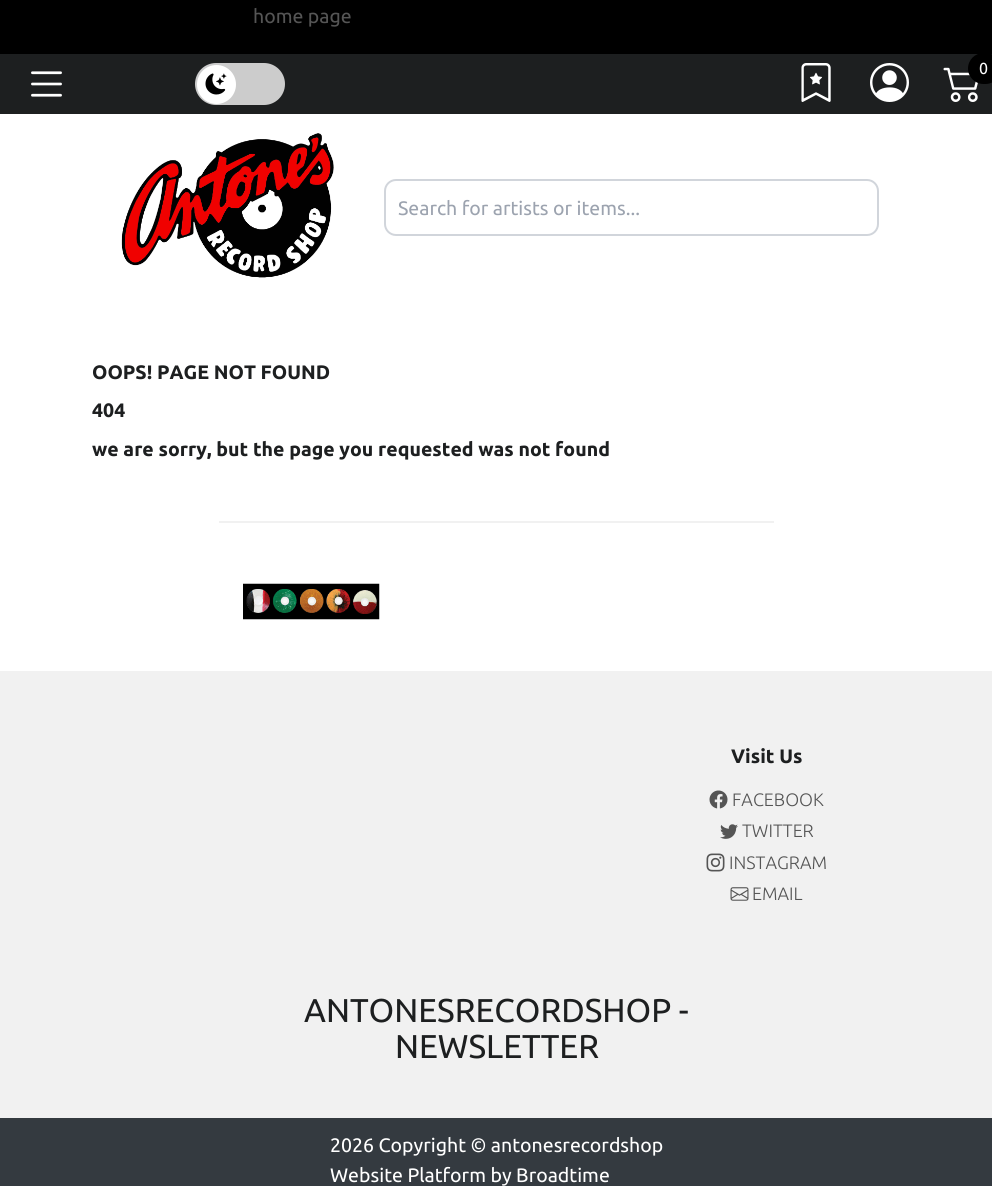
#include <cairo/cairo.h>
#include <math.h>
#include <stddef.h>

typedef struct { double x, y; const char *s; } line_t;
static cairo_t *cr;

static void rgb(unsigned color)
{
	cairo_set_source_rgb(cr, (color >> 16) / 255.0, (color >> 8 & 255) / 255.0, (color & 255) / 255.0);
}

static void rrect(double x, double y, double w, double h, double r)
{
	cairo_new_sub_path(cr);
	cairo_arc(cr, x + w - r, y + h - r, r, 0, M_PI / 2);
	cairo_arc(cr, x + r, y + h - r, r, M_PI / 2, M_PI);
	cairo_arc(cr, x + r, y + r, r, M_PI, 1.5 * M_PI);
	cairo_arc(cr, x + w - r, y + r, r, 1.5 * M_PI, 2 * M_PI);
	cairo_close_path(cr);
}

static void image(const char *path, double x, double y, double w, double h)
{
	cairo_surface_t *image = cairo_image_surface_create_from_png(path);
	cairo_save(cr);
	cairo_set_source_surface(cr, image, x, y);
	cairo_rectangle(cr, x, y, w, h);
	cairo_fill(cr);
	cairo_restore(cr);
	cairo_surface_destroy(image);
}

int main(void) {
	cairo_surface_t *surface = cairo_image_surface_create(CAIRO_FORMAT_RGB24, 992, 1186);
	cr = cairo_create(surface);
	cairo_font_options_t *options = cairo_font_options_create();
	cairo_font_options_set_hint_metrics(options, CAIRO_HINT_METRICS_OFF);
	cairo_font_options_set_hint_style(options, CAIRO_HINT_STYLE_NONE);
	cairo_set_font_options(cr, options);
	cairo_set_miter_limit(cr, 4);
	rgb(0x000000);
	cairo_paint(cr);
	rgb(0xffffff);
	cairo_rectangle(cr, 0, 114, 992, 557);
	cairo_fill(cr);
	rgb(0x1d1f20);
	cairo_rectangle(cr, 0, 54, 992, 60);
	cairo_fill(cr);
	image("img/1.png", 31, 71, 31, 26);
	rgb(0xcccccc);
	rrect(195, 63, 90, 42, 21);
	cairo_fill(cr);
	rgb(0xffffff);
	cairo_arc(cr, 216.5, 84.5, 19.5, 0, 2 * M_PI);
	cairo_fill(cr);
	image("img/2.png", 205, 73, 22, 22);
	image("img/3.png", 801, 63, 30, 39);
	image("img/4.png", 870, 63, 39, 39);
	image("img/5.png", 943, 67, 35, 35);
	rgb(0x000000);
	rrect(968, 53, 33, 31, 15.5);
	cairo_fill(cr);
	image("img/6.png", 121, 133, 213, 145);
	rrect(385, 180, 493, 55, 11);
	rgb(0xd1d5db);
	cairo_stroke(cr);
	rgb(0xf1f1f1);
	cairo_rectangle(cr, 219, 521, 555, 2);
	cairo_fill(cr);
	image("img/7.png", 243, 583, 137, 37);
	cairo_rectangle(cr, 0, 671, 992, 447);
	cairo_fill(cr);
	image("img/8.png", 709, 790, 19, 19);
	image("img/9.png", 720, 824, 18, 15);
	image("img/10.png", 706, 853, 19, 19);
	image("img/11.png", 730, 887, 19, 14);
	rgb(0x343a40);
	cairo_rectangle(cr, 0, 1118, 992, 68);
	cairo_fill(cr);
	cairo_select_font_face(cr, "Ubuntu", CAIRO_FONT_SLANT_NORMAL, CAIRO_FONT_WEIGHT_NORMAL);
	cairo_set_font_size(cr, 19.5);
	rgb(0x555555);
	cairo_move_to(cr, 253, 23);
	cairo_show_text(cr, "home page");
	cairo_set_font_size(cr, 16);
	rgb(0xffffff);
	cairo_move_to(cr, 979, 74);
	cairo_show_text(cr, "0");
	cairo_set_font_size(cr, 19.5);
	rgb(0x9ca3af);
	cairo_move_to(cr, 398, 215);
	cairo_show_text(cr, "Search for artists or items...");
	cairo_select_font_face(cr, "Ubuntu", CAIRO_FONT_SLANT_NORMAL, CAIRO_FONT_WEIGHT_BOLD);
	rgb(0x1d1f20);
	{
		static const line_t items[] = {
			{92, 379, "OOPS! PAGE NOT FOUND"},
			{92, 417, "404"},
			{92, 456, "we are sorry, but the page you requested was not found"},
			{731, 763, "Visit Us"},
		};
		for (size_t i = 0; i < sizeof items / sizeof *items; i++) {
			cairo_move_to(cr, items[i].x, items[i].y);
			cairo_show_text(cr, items[i].s);
		}
	}
	cairo_select_font_face(cr, "Ubuntu Light", CAIRO_FONT_SLANT_NORMAL, CAIRO_FONT_WEIGHT_NORMAL);
	cairo_set_font_size(cr, 18);
	rgb(0x555555);
	{
		static const line_t items[] = {
			{732, 806, "FACEBOOK"},
			{742, 837, "TWITTER"},
			{729, 869, "INSTAGRAM"},
			{752, 900, "EMAIL"},
		};
		for (size_t i = 0; i < sizeof items / sizeof *items; i++) {
			cairo_move_to(cr, items[i].x, items[i].y);
			cairo_show_text(cr, items[i].s);
		}
	}
	cairo_select_font_face(cr, "Ubuntu", CAIRO_FONT_SLANT_NORMAL, CAIRO_FONT_WEIGHT_NORMAL);
	cairo_set_font_size(cr, 33);
	rgb(0x1d1f20);
	cairo_move_to(cr, 304, 1022);
	cairo_show_text(cr, "ANTONESRECORDSHOP -");
	cairo_move_to(cr, 395, 1058);
	cairo_show_text(cr, "NEWSLETTER");
	cairo_set_font_size(cr, 19.5);
	rgb(0xffffff);
	cairo_move_to(cr, 330, 1152);
	cairo_show_text(cr, "2026 Copyright © antonesrecordshop");
	cairo_move_to(cr, 330, 1182);
	cairo_show_text(cr, "Website Platform by Broadtime");
	cairo_surface_write_to_png(surface, "page.png");
	cairo_font_options_destroy(options);
	cairo_destroy(cr);
	cairo_surface_destroy(surface);
	return 0;
}
